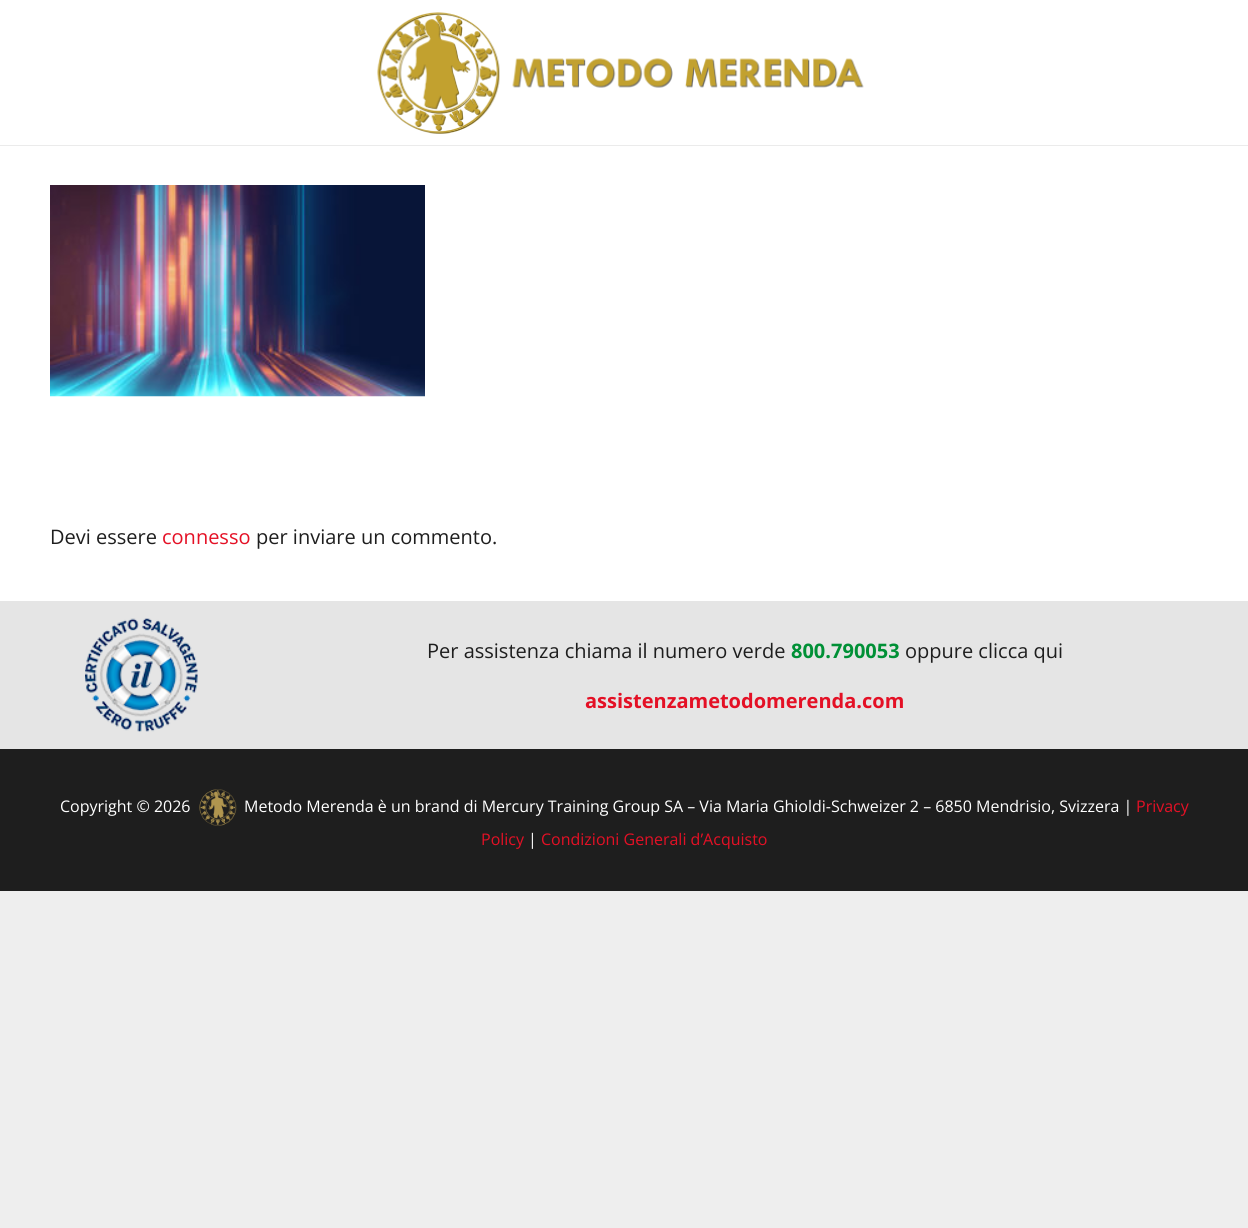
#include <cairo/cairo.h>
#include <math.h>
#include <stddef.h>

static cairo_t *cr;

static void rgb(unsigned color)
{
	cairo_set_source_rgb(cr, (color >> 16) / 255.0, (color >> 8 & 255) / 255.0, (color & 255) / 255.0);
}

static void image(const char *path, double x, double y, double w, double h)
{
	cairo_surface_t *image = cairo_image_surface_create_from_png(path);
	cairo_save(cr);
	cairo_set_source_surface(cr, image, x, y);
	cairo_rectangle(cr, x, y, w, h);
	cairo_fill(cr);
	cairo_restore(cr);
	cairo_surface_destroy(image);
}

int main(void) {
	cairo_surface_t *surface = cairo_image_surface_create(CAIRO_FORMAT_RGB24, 1248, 1228);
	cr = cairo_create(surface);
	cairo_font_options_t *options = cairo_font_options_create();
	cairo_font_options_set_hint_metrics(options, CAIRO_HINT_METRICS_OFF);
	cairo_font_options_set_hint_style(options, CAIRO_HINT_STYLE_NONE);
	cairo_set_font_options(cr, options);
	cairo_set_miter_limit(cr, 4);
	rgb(0xeeeeee);
	cairo_paint(cr);
	rgb(0xffffff);
	cairo_rectangle(cr, 0, 0, 1248, 601);
	cairo_fill(cr);
	rgb(0xebebeb);
	cairo_new_path(cr);
	cairo_move_to(cr, 0, 145);
	cairo_line_to(cr, 0, 146);
	cairo_line_to(cr, 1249, 146);
	cairo_line_to(cr, 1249, 1);
	cairo_line_to(cr, 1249, 145);
	cairo_close_path(cr);
	cairo_fill(cr);
	image("img/1.png", 377, 12, 487, 122);
	image("img/2.png", 50, 185, 375, 212);
	rgb(0xe5e5e5);
	cairo_rectangle(cr, 0, 601, 1248, 148);
	cairo_fill(cr);
	image("img/3.png", 85, 618, 113, 114);
	rgb(0x1e1e1e);
	cairo_rectangle(cr, 0, 749, 1248, 142);
	cairo_fill(cr);
	image("img/4.png", 199, 789, 38, 37);
	cairo_select_font_face(cr, "Open Sans", CAIRO_FONT_SLANT_NORMAL, CAIRO_FONT_WEIGHT_NORMAL);
	cairo_set_font_size(cr, 20);
	cairo_move_to(cr, 50, 544);
	cairo_show_text(cr, "Devi essere");
	rgb(0xe41025);
	cairo_move_to(cr, 162, 544);
	cairo_show_text(cr, "connesso");
	rgb(0x1e1e1e);
	cairo_move_to(cr, 256, 544);
	cairo_show_text(cr, "per inviare un commento.");
	cairo_move_to(cr, 427, 658);
	cairo_show_text(cr, "Per assistenza chiama il numero verde");
	cairo_select_font_face(cr, "Open Sans", CAIRO_FONT_SLANT_NORMAL, CAIRO_FONT_WEIGHT_BOLD);
	rgb(0x009036);
	cairo_move_to(cr, 791, 658);
	cairo_show_text(cr, "800.790053");
	cairo_select_font_face(cr, "Open Sans", CAIRO_FONT_SLANT_NORMAL, CAIRO_FONT_WEIGHT_NORMAL);
	rgb(0x1e1e1e);
	cairo_move_to(cr, 905, 658);
	cairo_show_text(cr, "oppure clicca qui");
	cairo_select_font_face(cr, "Open Sans", CAIRO_FONT_SLANT_NORMAL, CAIRO_FONT_WEIGHT_BOLD);
	rgb(0xe41025);
	cairo_move_to(cr, 585, 708);
	cairo_show_text(cr, "assistenzametodomerenda.com");
	cairo_select_font_face(cr, "Open Sans", CAIRO_FONT_SLANT_NORMAL, CAIRO_FONT_WEIGHT_NORMAL);
	cairo_set_font_size(cr, 16);
	rgb(0xffffff);
	cairo_move_to(cr, 60, 812);
	cairo_show_text(cr, "Copyright © 2026");
	cairo_move_to(cr, 244, 812);
	cairo_show_text(cr, "Metodo Merenda è un brand di Mercury Training Group SA – Via Maria Ghioldi-Schweizer 2 – 6850 Mendrisio, Svizzera |");
	rgb(0xe41025);
	cairo_move_to(cr, 1136, 812);
	cairo_show_text(cr, "Privacy");
	cairo_move_to(cr, 481, 845);
	cairo_show_text(cr, "Policy");
	rgb(0xffffff);
	cairo_move_to(cr, 528, 845);
	cairo_show_text(cr, "|");
	rgb(0xe41025);
	cairo_move_to(cr, 541, 845);
	cairo_show_text(cr, "Condizioni Generali d’Acquisto");
	cairo_surface_write_to_png(surface, "page.png");
	cairo_font_options_destroy(options);
	cairo_destroy(cr);
	cairo_surface_destroy(surface);
	return 0;
}
